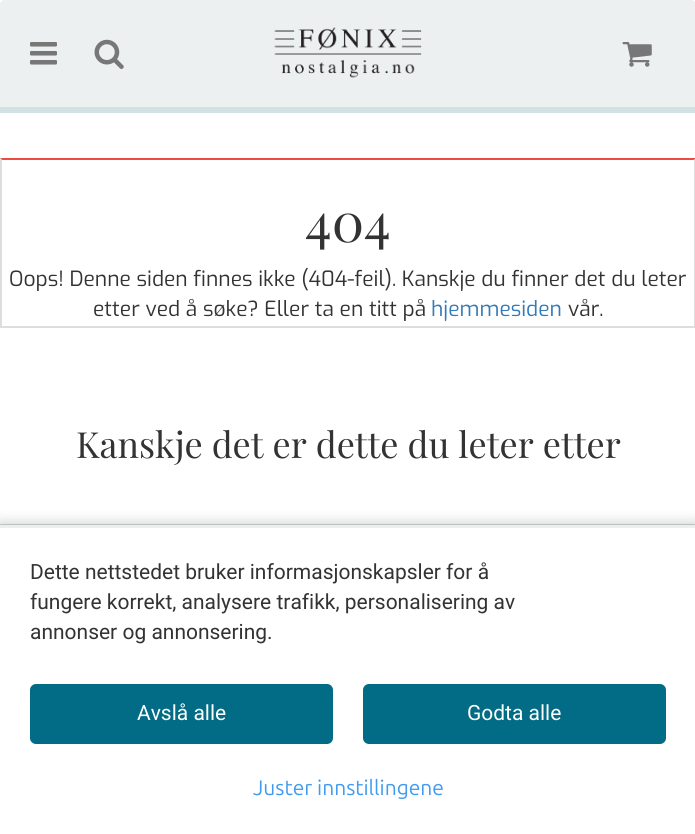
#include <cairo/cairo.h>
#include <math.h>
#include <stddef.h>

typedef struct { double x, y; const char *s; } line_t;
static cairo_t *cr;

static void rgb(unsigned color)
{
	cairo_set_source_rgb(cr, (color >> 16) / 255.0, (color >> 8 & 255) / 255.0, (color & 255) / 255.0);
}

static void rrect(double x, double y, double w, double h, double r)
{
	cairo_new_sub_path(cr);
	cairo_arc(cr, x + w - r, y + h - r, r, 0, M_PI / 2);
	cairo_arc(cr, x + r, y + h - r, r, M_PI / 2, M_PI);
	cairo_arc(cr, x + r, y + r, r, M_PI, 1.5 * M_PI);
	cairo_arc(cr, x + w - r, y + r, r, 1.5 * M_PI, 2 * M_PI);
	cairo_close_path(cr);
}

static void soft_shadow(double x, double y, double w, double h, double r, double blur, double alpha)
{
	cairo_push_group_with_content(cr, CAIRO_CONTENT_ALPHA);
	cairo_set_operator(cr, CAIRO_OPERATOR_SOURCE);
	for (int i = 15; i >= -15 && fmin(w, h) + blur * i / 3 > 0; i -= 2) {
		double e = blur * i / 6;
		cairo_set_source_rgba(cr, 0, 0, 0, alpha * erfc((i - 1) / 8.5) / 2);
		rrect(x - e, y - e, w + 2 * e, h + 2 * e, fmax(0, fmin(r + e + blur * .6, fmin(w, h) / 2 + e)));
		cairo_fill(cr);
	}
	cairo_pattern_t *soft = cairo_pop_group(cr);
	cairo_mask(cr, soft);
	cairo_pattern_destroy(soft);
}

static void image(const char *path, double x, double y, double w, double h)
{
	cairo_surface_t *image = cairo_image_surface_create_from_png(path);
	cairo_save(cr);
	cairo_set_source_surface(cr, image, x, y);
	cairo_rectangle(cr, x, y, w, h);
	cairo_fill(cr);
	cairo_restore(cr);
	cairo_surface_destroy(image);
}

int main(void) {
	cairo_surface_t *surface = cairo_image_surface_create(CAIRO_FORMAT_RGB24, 695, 834);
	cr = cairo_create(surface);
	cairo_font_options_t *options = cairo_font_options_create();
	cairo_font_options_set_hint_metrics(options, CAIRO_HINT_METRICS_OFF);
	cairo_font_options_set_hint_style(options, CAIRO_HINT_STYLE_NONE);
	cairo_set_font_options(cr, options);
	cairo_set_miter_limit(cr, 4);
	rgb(0xffffff);
	cairo_paint(cr);
	rgb(0xecf0f1);
	cairo_new_path(cr);
	cairo_move_to(cr, 5, 0);
	cairo_line_to(cr, 691, 0);
	cairo_curve_to(cr, 694, 0, 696, 2, 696, 5);
	cairo_line_to(cr, 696, 107);
	cairo_line_to(cr, 0, 107);
	cairo_line_to(cr, 0, 5);
	cairo_curve_to(cr, 0, 2, 2, 0, 5, 0);
	cairo_close_path(cr);
	cairo_fill(cr);
	image("img/1.png", 30, 42, 27, 23);
	image("img/2.png", 94, 39, 30, 30);
	image("img/3.png", 274, 27, 148, 51);
	image("img/4.png", 622, 42, 30, 25);
	rgb(0xd2e1e4);
	cairo_rectangle(cr, 0, 107, 695, 6);
	cairo_fill(cr);
	rgb(0xee4a42);
	cairo_new_path(cr);
	cairo_move_to(cr, 0, 158);
	cairo_line_to(cr, 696, 158);
	cairo_line_to(cr, 694, 160);
	cairo_line_to(cr, 2, 160);
	cairo_close_path(cr);
	cairo_fill(cr);
	rgb(0xdddddd);
	cairo_new_path(cr);
	cairo_move_to(cr, 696, 158);
	cairo_line_to(cr, 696, 327);
	cairo_line_to(cr, 694, 326);
	cairo_line_to(cr, 694, 160);
	cairo_close_path(cr);
	cairo_fill(cr);
	cairo_rectangle(cr, 0, 326, 695, 2);
	cairo_fill(cr);
	cairo_new_path(cr);
	cairo_move_to(cr, 0, 327);
	cairo_line_to(cr, 0, 158);
	cairo_line_to(cr, 2, 160);
	cairo_line_to(cr, 2, 326);
	cairo_close_path(cr);
	cairo_fill(cr);
	rgb(0xd4dede);
	cairo_rectangle(cr, 0, 524, 695, 1);
	cairo_fill(cr);
	rgb(0x000000);
	soft_shadow(0, 525, 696, 309, 0, 7.5, 0.25);
	rgb(0xffffff);
	cairo_rectangle(cr, 0, 528, 695, 306);
	cairo_fill(cr);
	rgb(0xeeeeee);
	cairo_rectangle(cr, 0, 525, 695, 3);
	cairo_fill(cr);
	rgb(0x026b85);
	rrect(30, 684, 303, 60, 6);
	cairo_fill(cr);
	rrect(363, 684, 303, 60, 6);
	cairo_fill(cr);
	cairo_select_font_face(cr, "Playfair Display", CAIRO_FONT_SLANT_NORMAL, CAIRO_FONT_WEIGHT_NORMAL);
	cairo_set_font_size(cr, 54);
	rgb(0x333333);
	cairo_move_to(cr, 305, 242);
	cairo_show_text(cr, "404");
	cairo_select_font_face(cr, "Exo", CAIRO_FONT_SLANT_NORMAL, CAIRO_FONT_WEIGHT_NORMAL);
	cairo_set_font_size(cr, 21);
	cairo_move_to(cr, 9, 286);
	cairo_show_text(cr, "Oops! Denne siden finnes ikke (404-feil). Kanskje du finner det du leter");
	cairo_move_to(cr, 93, 316);
	cairo_show_text(cr, "etter ved å søke? Eller ta en titt på");
	rgb(0x337ab7);
	cairo_move_to(cr, 431, 316);
	cairo_show_text(cr, "hjemmesiden");
	rgb(0x333333);
	cairo_move_to(cr, 568, 316);
	cairo_show_text(cr, "vår.");
	cairo_select_font_face(cr, "Playfair Display", CAIRO_FONT_SLANT_NORMAL, CAIRO_FONT_WEIGHT_NORMAL);
	cairo_set_font_size(cr, 36);
	cairo_move_to(cr, 76, 458);
	cairo_show_text(cr, "Kanskje det er dette du leter etter");
	cairo_select_font_face(cr, "Roboto", CAIRO_FONT_SLANT_NORMAL, CAIRO_FONT_WEIGHT_NORMAL);
	cairo_set_font_size(cr, 21);
	{
		static const line_t items[] = {
			{30, 579, "Dette nettstedet bruker informasjonskapsler for å"},
			{30, 609, "fungere korrekt, analysere trafikk, personalisering av"},
			{30, 639, "annonser og annonsering."},
		};
		for (size_t i = 0; i < sizeof items / sizeof *items; i++) {
			cairo_move_to(cr, items[i].x, items[i].y);
			cairo_show_text(cr, items[i].s);
		}
	}
	rgb(0xffffff);
	cairo_move_to(cr, 137, 720);
	cairo_show_text(cr, "Avslå alle");
	cairo_move_to(cr, 467, 720);
	cairo_show_text(cr, "Godta alle");
	cairo_select_font_face(cr, "Ubuntu", CAIRO_FONT_SLANT_NORMAL, CAIRO_FONT_WEIGHT_NORMAL);
	rgb(0x409aef);
	cairo_move_to(cr, 253, 795);
	cairo_show_text(cr, "Juster innstillingene");
	cairo_surface_write_to_png(surface, "page.png");
	cairo_font_options_destroy(options);
	cairo_destroy(cr);
	cairo_surface_destroy(surface);
	return 0;
}
